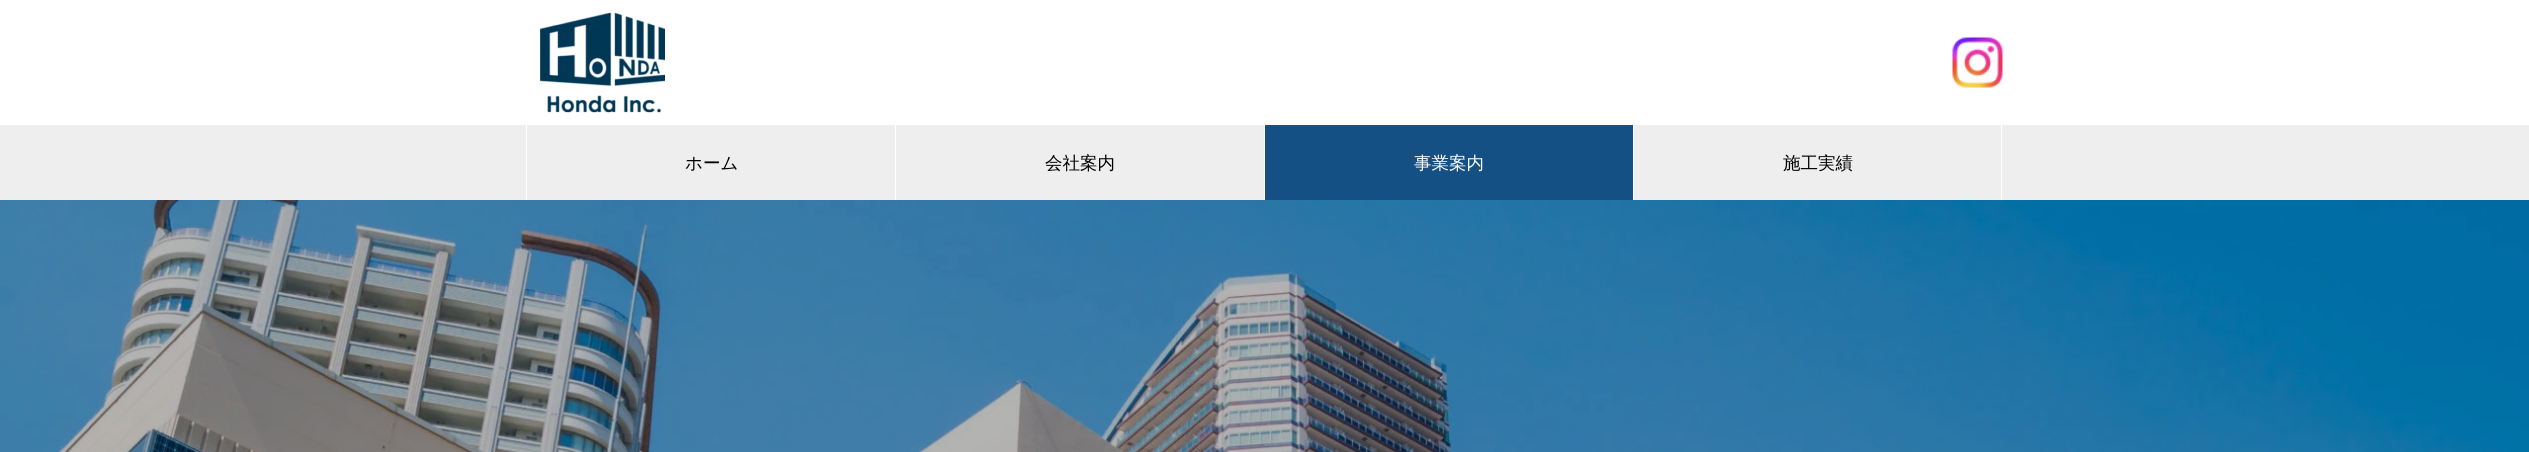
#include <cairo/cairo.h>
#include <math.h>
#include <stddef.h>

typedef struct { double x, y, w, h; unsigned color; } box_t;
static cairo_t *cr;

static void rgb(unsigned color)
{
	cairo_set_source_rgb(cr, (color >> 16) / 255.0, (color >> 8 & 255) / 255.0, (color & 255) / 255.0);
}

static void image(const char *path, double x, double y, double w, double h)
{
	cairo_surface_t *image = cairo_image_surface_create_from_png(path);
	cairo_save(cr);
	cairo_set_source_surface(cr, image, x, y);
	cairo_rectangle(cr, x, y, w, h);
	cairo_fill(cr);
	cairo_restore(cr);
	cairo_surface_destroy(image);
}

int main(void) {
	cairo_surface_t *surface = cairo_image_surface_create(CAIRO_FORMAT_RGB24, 2529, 452);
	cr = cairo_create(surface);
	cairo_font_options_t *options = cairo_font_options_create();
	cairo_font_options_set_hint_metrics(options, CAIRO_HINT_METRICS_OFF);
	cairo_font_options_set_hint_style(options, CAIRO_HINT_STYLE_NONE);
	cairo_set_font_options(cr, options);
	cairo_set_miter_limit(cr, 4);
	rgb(0xffffff);
	cairo_paint(cr);
	image("img/1.png", 540, 12, 125, 101);
	image("img/2.png", 1952, 37, 51, 51);
	{
		static const box_t items[] = {
			{0, 125, 2529, 75, 0xeeeeee},
			{895, 125, 1, 75, 0xffffff},
			{526, 125, 1, 75, 0xffffff},
			{1264, 125, 1, 75, 0xffffff},
			{1633, 125, 1, 75, 0xffffff},
			{1265, 125, 368, 75, 0x155084},
			{2001, 125, 1, 75, 0xffffff},
		};
		for (size_t i = 0; i < sizeof items / sizeof *items; i++) {
			rgb(items[i].color);
			cairo_rectangle(cr, items[i].x, items[i].y, items[i].w, items[i].h);
			cairo_fill(cr);
		}
	}
	image("img/3.png", 0, 200, 2529, 252);
	cairo_select_font_face(cr, "WenQuanYi Zen Hei Medium", CAIRO_FONT_SLANT_NORMAL, CAIRO_FONT_WEIGHT_NORMAL);
	cairo_set_font_size(cr, 17.5);
	rgb(0x000000);
	cairo_move_to(cr, 685, 169);
	cairo_show_text(cr, "ホーム");
	cairo_move_to(cr, 1045, 169);
	cairo_show_text(cr, "会社案内");
	rgb(0xffffff);
	cairo_move_to(cr, 1414, 169);
	cairo_show_text(cr, "事業案内");
	rgb(0x000000);
	cairo_move_to(cr, 1783, 169);
	cairo_show_text(cr, "施工実績");
	cairo_surface_write_to_png(surface, "page.png");
	cairo_font_options_destroy(options);
	cairo_destroy(cr);
	cairo_surface_destroy(surface);
	return 0;
}
